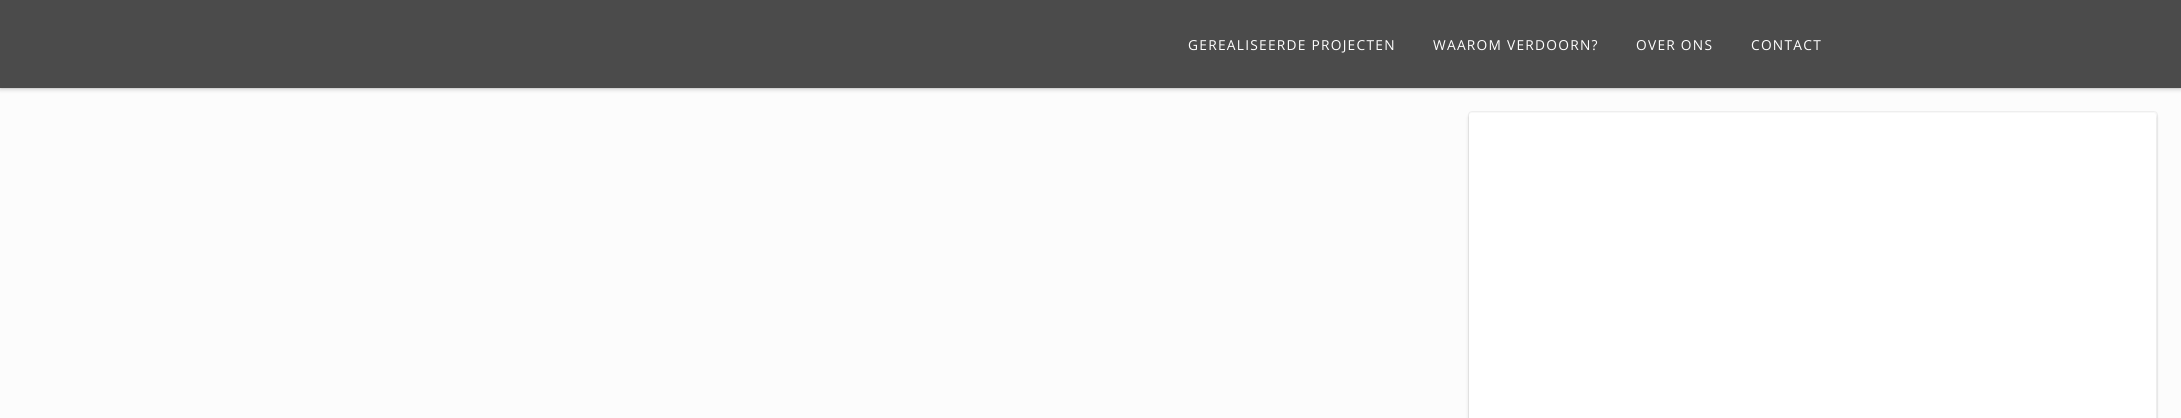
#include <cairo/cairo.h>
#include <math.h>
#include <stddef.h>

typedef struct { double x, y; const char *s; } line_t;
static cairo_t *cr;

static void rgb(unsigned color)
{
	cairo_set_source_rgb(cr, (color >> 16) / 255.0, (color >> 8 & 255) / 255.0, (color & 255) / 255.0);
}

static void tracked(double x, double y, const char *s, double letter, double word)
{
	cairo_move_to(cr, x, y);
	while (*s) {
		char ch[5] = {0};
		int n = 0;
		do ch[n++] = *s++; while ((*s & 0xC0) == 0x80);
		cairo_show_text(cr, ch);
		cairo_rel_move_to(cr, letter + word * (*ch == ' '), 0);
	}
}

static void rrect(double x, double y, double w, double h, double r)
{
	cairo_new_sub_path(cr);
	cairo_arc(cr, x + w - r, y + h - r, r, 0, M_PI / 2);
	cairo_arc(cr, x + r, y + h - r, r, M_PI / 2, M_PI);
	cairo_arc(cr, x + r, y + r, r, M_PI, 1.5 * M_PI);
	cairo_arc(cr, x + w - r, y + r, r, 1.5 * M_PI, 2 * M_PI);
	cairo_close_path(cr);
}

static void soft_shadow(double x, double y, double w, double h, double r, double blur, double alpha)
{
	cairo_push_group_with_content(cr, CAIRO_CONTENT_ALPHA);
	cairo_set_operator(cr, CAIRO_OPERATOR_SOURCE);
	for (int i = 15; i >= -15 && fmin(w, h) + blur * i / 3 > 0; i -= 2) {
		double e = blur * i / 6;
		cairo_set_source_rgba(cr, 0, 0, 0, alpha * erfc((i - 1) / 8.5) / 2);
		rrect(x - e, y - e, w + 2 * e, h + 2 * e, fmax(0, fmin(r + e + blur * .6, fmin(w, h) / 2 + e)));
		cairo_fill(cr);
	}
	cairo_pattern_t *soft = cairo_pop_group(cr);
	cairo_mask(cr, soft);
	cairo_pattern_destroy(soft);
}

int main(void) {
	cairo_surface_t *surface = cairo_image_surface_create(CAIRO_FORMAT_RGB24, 2181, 418);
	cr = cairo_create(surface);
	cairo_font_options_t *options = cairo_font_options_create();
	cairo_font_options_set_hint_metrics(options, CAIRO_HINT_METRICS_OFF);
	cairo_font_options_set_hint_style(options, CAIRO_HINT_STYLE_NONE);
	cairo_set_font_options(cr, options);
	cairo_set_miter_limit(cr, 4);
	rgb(0xfcfcfc);
	cairo_paint(cr);
	cairo_rectangle(cr, -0.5, -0.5, 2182, 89);
	rgb(0xefefef);
	cairo_set_line_width(cr, 1);
	cairo_stroke(cr);
	cairo_save(cr);
	cairo_set_fill_rule(cr, CAIRO_FILL_RULE_EVEN_ODD);
	cairo_new_path(cr);
	cairo_move_to(cr, 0, 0);
	cairo_line_to(cr, 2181, 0);
	cairo_line_to(cr, 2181, 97);
	cairo_line_to(cr, 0, 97);
	cairo_close_path(cr);
	cairo_move_to(cr, 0, 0);
	cairo_line_to(cr, 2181, 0);
	cairo_line_to(cr, 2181, 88);
	cairo_line_to(cr, 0, 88);
	cairo_close_path(cr);
	cairo_clip(cr);
	rgb(0x000000);
	soft_shadow(0, 3, 2181, 87, 0, 2, 0.15);
	cairo_restore(cr);
	cairo_set_source_rgba(cr, 0, 0, 0, 0.7);
	cairo_rectangle(cr, 0, 0, 2181, 88);
	cairo_fill(cr);
	rrect(1468.5, 111.5, 689, 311, 3.5);
	rgb(0xefefef);
	cairo_stroke(cr);
	rgb(0x000000);
	soft_shadow(1469, 115, 687, 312, 2.5, 2, 0.15);
	rgb(0xffffff);
	rrect(1469, 113, 687, 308, 2.5);
	cairo_fill(cr);
	cairo_select_font_face(cr, "Open Sans", CAIRO_FONT_SLANT_NORMAL, CAIRO_FONT_WEIGHT_NORMAL);
	cairo_set_font_size(cr, 13.75);
	{
		static const line_t items[] = {
			{1188, 50, "GEREALISEERDE PROJECTEN"},
			{1433, 50, "WAAROM VERDOORN?"},
			{1636, 50, "OVER ONS"},
			{1751, 50, "CONTACT"},
		};
		for (size_t i = 0; i < sizeof items / sizeof *items; i++) {
			tracked(items[i].x, items[i].y, items[i].s, 1.25, 0);
		}
	}
	cairo_surface_write_to_png(surface, "page.png");
	cairo_font_options_destroy(options);
	cairo_destroy(cr);
	cairo_surface_destroy(surface);
	return 0;
}
